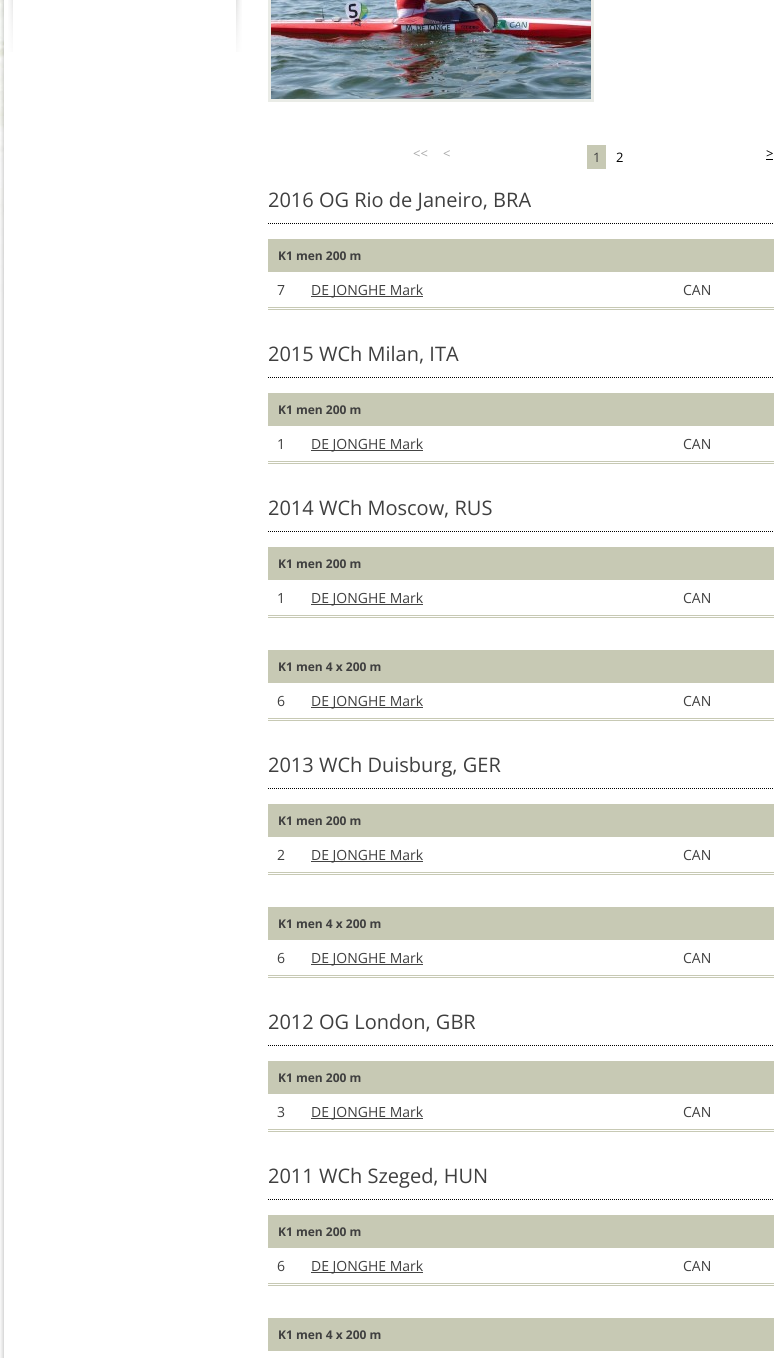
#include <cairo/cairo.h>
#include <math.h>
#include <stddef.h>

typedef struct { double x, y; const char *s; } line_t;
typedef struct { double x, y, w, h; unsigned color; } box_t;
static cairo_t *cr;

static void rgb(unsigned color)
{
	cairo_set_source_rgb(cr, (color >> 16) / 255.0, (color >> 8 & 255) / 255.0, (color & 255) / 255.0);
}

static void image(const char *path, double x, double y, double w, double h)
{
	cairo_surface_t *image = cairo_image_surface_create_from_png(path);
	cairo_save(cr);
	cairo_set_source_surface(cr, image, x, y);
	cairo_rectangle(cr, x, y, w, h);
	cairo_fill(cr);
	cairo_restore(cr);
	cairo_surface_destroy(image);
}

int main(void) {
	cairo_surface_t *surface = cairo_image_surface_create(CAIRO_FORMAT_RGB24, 774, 1358);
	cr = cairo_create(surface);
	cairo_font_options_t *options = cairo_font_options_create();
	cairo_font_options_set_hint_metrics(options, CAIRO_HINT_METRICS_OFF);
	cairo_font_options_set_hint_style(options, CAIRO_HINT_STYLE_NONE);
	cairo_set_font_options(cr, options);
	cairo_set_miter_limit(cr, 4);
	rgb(0xf6f6f6);
	cairo_paint(cr);
	image("img/1.png", 0, 0, 4, 298);
	image("img/2.png", 1, 0, 773, 1358);
	image("img/3.png", 8, 0, 234, 52);
	cairo_rectangle(cr, 269.5, -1.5, 323, 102);
	rgb(0xeaece7);
	cairo_set_line_width(cr, 3);
	cairo_stroke(cr);
	image("img/4.png", 271, 0, 320, 99);
	rgb(0xc7c9b4);
	cairo_rectangle(cr, 587, 145, 19, 24);
	cairo_fill(cr);
	rgb(0x000000);
	cairo_rectangle(cr, 766, 159, 7, 1);
	cairo_fill(cr);
	cairo_new_path(cr);
	cairo_move_to(cr, 268, 223.5);
	cairo_line_to(cr, 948, 223.5);
	cairo_set_line_width(cr, 1);
	cairo_set_dash(cr, (double[]){1, 1}, 2, 0);
	cairo_stroke(cr);
	{
		static const box_t items[] = {
			{268, 239, 506, 33, 0xc7c9b4},
			{311, 296, 112, 1, 0x444444},
			{268, 307, 506, 1, 0xc7c9b4},
			{268, 309, 506, 1, 0xc7c9b4},
		};
		for (size_t i = 0; i < sizeof items / sizeof *items; i++) {
			rgb(items[i].color);
			cairo_rectangle(cr, items[i].x, items[i].y, items[i].w, items[i].h);
			cairo_fill(cr);
		}
	}
	cairo_new_path(cr);
	cairo_move_to(cr, 268, 377.5);
	cairo_line_to(cr, 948, 377.5);
	rgb(0x000000);
	cairo_stroke(cr);
	{
		static const box_t items[] = {
			{268, 393, 506, 33, 0xc7c9b4},
			{311, 450, 112, 1, 0x444444},
			{268, 461, 506, 1, 0xc7c9b4},
			{268, 463, 506, 1, 0xc7c9b4},
		};
		for (size_t i = 0; i < sizeof items / sizeof *items; i++) {
			rgb(items[i].color);
			cairo_rectangle(cr, items[i].x, items[i].y, items[i].w, items[i].h);
			cairo_fill(cr);
		}
	}
	cairo_new_path(cr);
	cairo_move_to(cr, 268, 531.5);
	cairo_line_to(cr, 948, 531.5);
	rgb(0x000000);
	cairo_stroke(cr);
	{
		static const box_t items[] = {
			{268, 547, 506, 33, 0xc7c9b4},
			{311, 604, 112, 1, 0x444444},
			{268, 615, 506, 1, 0xc7c9b4},
			{268, 617, 506, 1, 0xc7c9b4},
			{268, 650, 506, 33, 0xc7c9b4},
			{311, 707, 112, 1, 0x444444},
			{268, 718, 506, 1, 0xc7c9b4},
			{268, 720, 506, 1, 0xc7c9b4},
		};
		for (size_t i = 0; i < sizeof items / sizeof *items; i++) {
			rgb(items[i].color);
			cairo_rectangle(cr, items[i].x, items[i].y, items[i].w, items[i].h);
			cairo_fill(cr);
		}
	}
	cairo_new_path(cr);
	cairo_move_to(cr, 268, 788.5);
	cairo_line_to(cr, 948, 788.5);
	rgb(0x000000);
	cairo_stroke(cr);
	{
		static const box_t items[] = {
			{268, 804, 506, 33, 0xc7c9b4},
			{311, 861, 112, 1, 0x444444},
			{268, 872, 506, 1, 0xc7c9b4},
			{268, 874, 506, 1, 0xc7c9b4},
			{268, 907, 506, 33, 0xc7c9b4},
			{311, 964, 112, 1, 0x444444},
			{268, 975, 506, 1, 0xc7c9b4},
			{268, 977, 506, 1, 0xc7c9b4},
		};
		for (size_t i = 0; i < sizeof items / sizeof *items; i++) {
			rgb(items[i].color);
			cairo_rectangle(cr, items[i].x, items[i].y, items[i].w, items[i].h);
			cairo_fill(cr);
		}
	}
	cairo_new_path(cr);
	cairo_move_to(cr, 268, 1045.5);
	cairo_line_to(cr, 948, 1045.5);
	rgb(0x000000);
	cairo_stroke(cr);
	{
		static const box_t items[] = {
			{268, 1061, 506, 33, 0xc7c9b4},
			{311, 1118, 112, 1, 0x444444},
			{268, 1129, 506, 1, 0xc7c9b4},
			{268, 1131, 506, 1, 0xc7c9b4},
		};
		for (size_t i = 0; i < sizeof items / sizeof *items; i++) {
			rgb(items[i].color);
			cairo_rectangle(cr, items[i].x, items[i].y, items[i].w, items[i].h);
			cairo_fill(cr);
		}
	}
	cairo_new_path(cr);
	cairo_move_to(cr, 268, 1199.5);
	cairo_line_to(cr, 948, 1199.5);
	rgb(0x000000);
	cairo_stroke(cr);
	{
		static const box_t items[] = {
			{268, 1215, 506, 33, 0xc7c9b4},
			{311, 1272, 112, 1, 0x444444},
			{268, 1283, 506, 1, 0xc7c9b4},
			{268, 1285, 506, 1, 0xc7c9b4},
			{268, 1318, 506, 33, 0xc7c9b4},
		};
		for (size_t i = 0; i < sizeof items / sizeof *items; i++) {
			rgb(items[i].color);
			cairo_rectangle(cr, items[i].x, items[i].y, items[i].w, items[i].h);
			cairo_fill(cr);
		}
	}
	cairo_select_font_face(cr, "Open Sans", CAIRO_FONT_SLANT_NORMAL, CAIRO_FONT_WEIGHT_NORMAL);
	cairo_set_font_size(cr, 13);
	rgb(0xaaaaaa);
	cairo_move_to(cr, 413, 158);
	cairo_show_text(cr, "<<");
	cairo_move_to(cr, 443, 158);
	cairo_show_text(cr, "<");
	rgb(0x3f3f3f);
	cairo_move_to(cr, 593, 162);
	cairo_show_text(cr, "1");
	rgb(0x000000);
	cairo_move_to(cr, 616, 162);
	cairo_show_text(cr, "2");
	cairo_move_to(cr, 766, 158);
	cairo_show_text(cr, ">");
	cairo_set_font_size(cr, 20);
	rgb(0x3f3f3f);
	cairo_move_to(cr, 268, 207);
	cairo_show_text(cr, "2016 OG Rio de Janeiro, BRA");
	cairo_select_font_face(cr, "Open Sans", CAIRO_FONT_SLANT_NORMAL, CAIRO_FONT_WEIGHT_BOLD);
	cairo_set_font_size(cr, 12);
	cairo_move_to(cr, 278, 260);
	cairo_show_text(cr, "K1 men 200 m");
	cairo_select_font_face(cr, "Open Sans", CAIRO_FONT_SLANT_NORMAL, CAIRO_FONT_WEIGHT_NORMAL);
	cairo_set_font_size(cr, 14);
	{
		static const line_t items[] = {
			{277, 295, "7"},
			{311, 295, "DE JONGHE Mark"},
			{683, 295, "CAN"},
		};
		for (size_t i = 0; i < sizeof items / sizeof *items; i++) {
			cairo_move_to(cr, items[i].x, items[i].y);
			cairo_show_text(cr, items[i].s);
		}
	}
	cairo_set_font_size(cr, 20);
	cairo_move_to(cr, 268, 361);
	cairo_show_text(cr, "2015 WCh Milan, ITA");
	cairo_select_font_face(cr, "Open Sans", CAIRO_FONT_SLANT_NORMAL, CAIRO_FONT_WEIGHT_BOLD);
	cairo_set_font_size(cr, 12);
	cairo_move_to(cr, 278, 414);
	cairo_show_text(cr, "K1 men 200 m");
	cairo_select_font_face(cr, "Open Sans", CAIRO_FONT_SLANT_NORMAL, CAIRO_FONT_WEIGHT_NORMAL);
	cairo_set_font_size(cr, 14);
	{
		static const line_t items[] = {
			{277, 449, "1"},
			{311, 449, "DE JONGHE Mark"},
			{683, 449, "CAN"},
		};
		for (size_t i = 0; i < sizeof items / sizeof *items; i++) {
			cairo_move_to(cr, items[i].x, items[i].y);
			cairo_show_text(cr, items[i].s);
		}
	}
	cairo_set_font_size(cr, 20);
	cairo_move_to(cr, 268, 515);
	cairo_show_text(cr, "2014 WCh Moscow, RUS");
	cairo_select_font_face(cr, "Open Sans", CAIRO_FONT_SLANT_NORMAL, CAIRO_FONT_WEIGHT_BOLD);
	cairo_set_font_size(cr, 12);
	cairo_move_to(cr, 278, 568);
	cairo_show_text(cr, "K1 men 200 m");
	cairo_select_font_face(cr, "Open Sans", CAIRO_FONT_SLANT_NORMAL, CAIRO_FONT_WEIGHT_NORMAL);
	cairo_set_font_size(cr, 14);
	{
		static const line_t items[] = {
			{277, 603, "1"},
			{311, 603, "DE JONGHE Mark"},
			{683, 603, "CAN"},
		};
		for (size_t i = 0; i < sizeof items / sizeof *items; i++) {
			cairo_move_to(cr, items[i].x, items[i].y);
			cairo_show_text(cr, items[i].s);
		}
	}
	cairo_select_font_face(cr, "Open Sans", CAIRO_FONT_SLANT_NORMAL, CAIRO_FONT_WEIGHT_BOLD);
	cairo_set_font_size(cr, 12);
	cairo_move_to(cr, 278, 671);
	cairo_show_text(cr, "K1 men 4 x 200 m");
	cairo_select_font_face(cr, "Open Sans", CAIRO_FONT_SLANT_NORMAL, CAIRO_FONT_WEIGHT_NORMAL);
	cairo_set_font_size(cr, 14);
	{
		static const line_t items[] = {
			{277, 706, "6"},
			{311, 706, "DE JONGHE Mark"},
			{683, 706, "CAN"},
		};
		for (size_t i = 0; i < sizeof items / sizeof *items; i++) {
			cairo_move_to(cr, items[i].x, items[i].y);
			cairo_show_text(cr, items[i].s);
		}
	}
	cairo_set_font_size(cr, 20);
	cairo_move_to(cr, 268, 772);
	cairo_show_text(cr, "2013 WCh Duisburg, GER");
	cairo_select_font_face(cr, "Open Sans", CAIRO_FONT_SLANT_NORMAL, CAIRO_FONT_WEIGHT_BOLD);
	cairo_set_font_size(cr, 12);
	cairo_move_to(cr, 278, 825);
	cairo_show_text(cr, "K1 men 200 m");
	cairo_select_font_face(cr, "Open Sans", CAIRO_FONT_SLANT_NORMAL, CAIRO_FONT_WEIGHT_NORMAL);
	cairo_set_font_size(cr, 14);
	{
		static const line_t items[] = {
			{277, 860, "2"},
			{311, 860, "DE JONGHE Mark"},
			{683, 860, "CAN"},
		};
		for (size_t i = 0; i < sizeof items / sizeof *items; i++) {
			cairo_move_to(cr, items[i].x, items[i].y);
			cairo_show_text(cr, items[i].s);
		}
	}
	cairo_select_font_face(cr, "Open Sans", CAIRO_FONT_SLANT_NORMAL, CAIRO_FONT_WEIGHT_BOLD);
	cairo_set_font_size(cr, 12);
	cairo_move_to(cr, 278, 928);
	cairo_show_text(cr, "K1 men 4 x 200 m");
	cairo_select_font_face(cr, "Open Sans", CAIRO_FONT_SLANT_NORMAL, CAIRO_FONT_WEIGHT_NORMAL);
	cairo_set_font_size(cr, 14);
	{
		static const line_t items[] = {
			{277, 963, "6"},
			{311, 963, "DE JONGHE Mark"},
			{683, 963, "CAN"},
		};
		for (size_t i = 0; i < sizeof items / sizeof *items; i++) {
			cairo_move_to(cr, items[i].x, items[i].y);
			cairo_show_text(cr, items[i].s);
		}
	}
	cairo_set_font_size(cr, 20);
	cairo_move_to(cr, 268, 1029);
	cairo_show_text(cr, "2012 OG London, GBR");
	cairo_select_font_face(cr, "Open Sans", CAIRO_FONT_SLANT_NORMAL, CAIRO_FONT_WEIGHT_BOLD);
	cairo_set_font_size(cr, 12);
	cairo_move_to(cr, 278, 1082);
	cairo_show_text(cr, "K1 men 200 m");
	cairo_select_font_face(cr, "Open Sans", CAIRO_FONT_SLANT_NORMAL, CAIRO_FONT_WEIGHT_NORMAL);
	cairo_set_font_size(cr, 14);
	{
		static const line_t items[] = {
			{277, 1117, "3"},
			{311, 1117, "DE JONGHE Mark"},
			{683, 1117, "CAN"},
		};
		for (size_t i = 0; i < sizeof items / sizeof *items; i++) {
			cairo_move_to(cr, items[i].x, items[i].y);
			cairo_show_text(cr, items[i].s);
		}
	}
	cairo_set_font_size(cr, 20);
	cairo_move_to(cr, 268, 1183);
	cairo_show_text(cr, "2011 WCh Szeged, HUN");
	cairo_select_font_face(cr, "Open Sans", CAIRO_FONT_SLANT_NORMAL, CAIRO_FONT_WEIGHT_BOLD);
	cairo_set_font_size(cr, 12);
	cairo_move_to(cr, 278, 1236);
	cairo_show_text(cr, "K1 men 200 m");
	cairo_select_font_face(cr, "Open Sans", CAIRO_FONT_SLANT_NORMAL, CAIRO_FONT_WEIGHT_NORMAL);
	cairo_set_font_size(cr, 14);
	{
		static const line_t items[] = {
			{277, 1271, "6"},
			{311, 1271, "DE JONGHE Mark"},
			{683, 1271, "CAN"},
		};
		for (size_t i = 0; i < sizeof items / sizeof *items; i++) {
			cairo_move_to(cr, items[i].x, items[i].y);
			cairo_show_text(cr, items[i].s);
		}
	}
	cairo_select_font_face(cr, "Open Sans", CAIRO_FONT_SLANT_NORMAL, CAIRO_FONT_WEIGHT_BOLD);
	cairo_set_font_size(cr, 12);
	cairo_move_to(cr, 278, 1339);
	cairo_show_text(cr, "K1 men 4 x 200 m");
	cairo_surface_write_to_png(surface, "page.png");
	cairo_font_options_destroy(options);
	cairo_destroy(cr);
	cairo_surface_destroy(surface);
	return 0;
}
